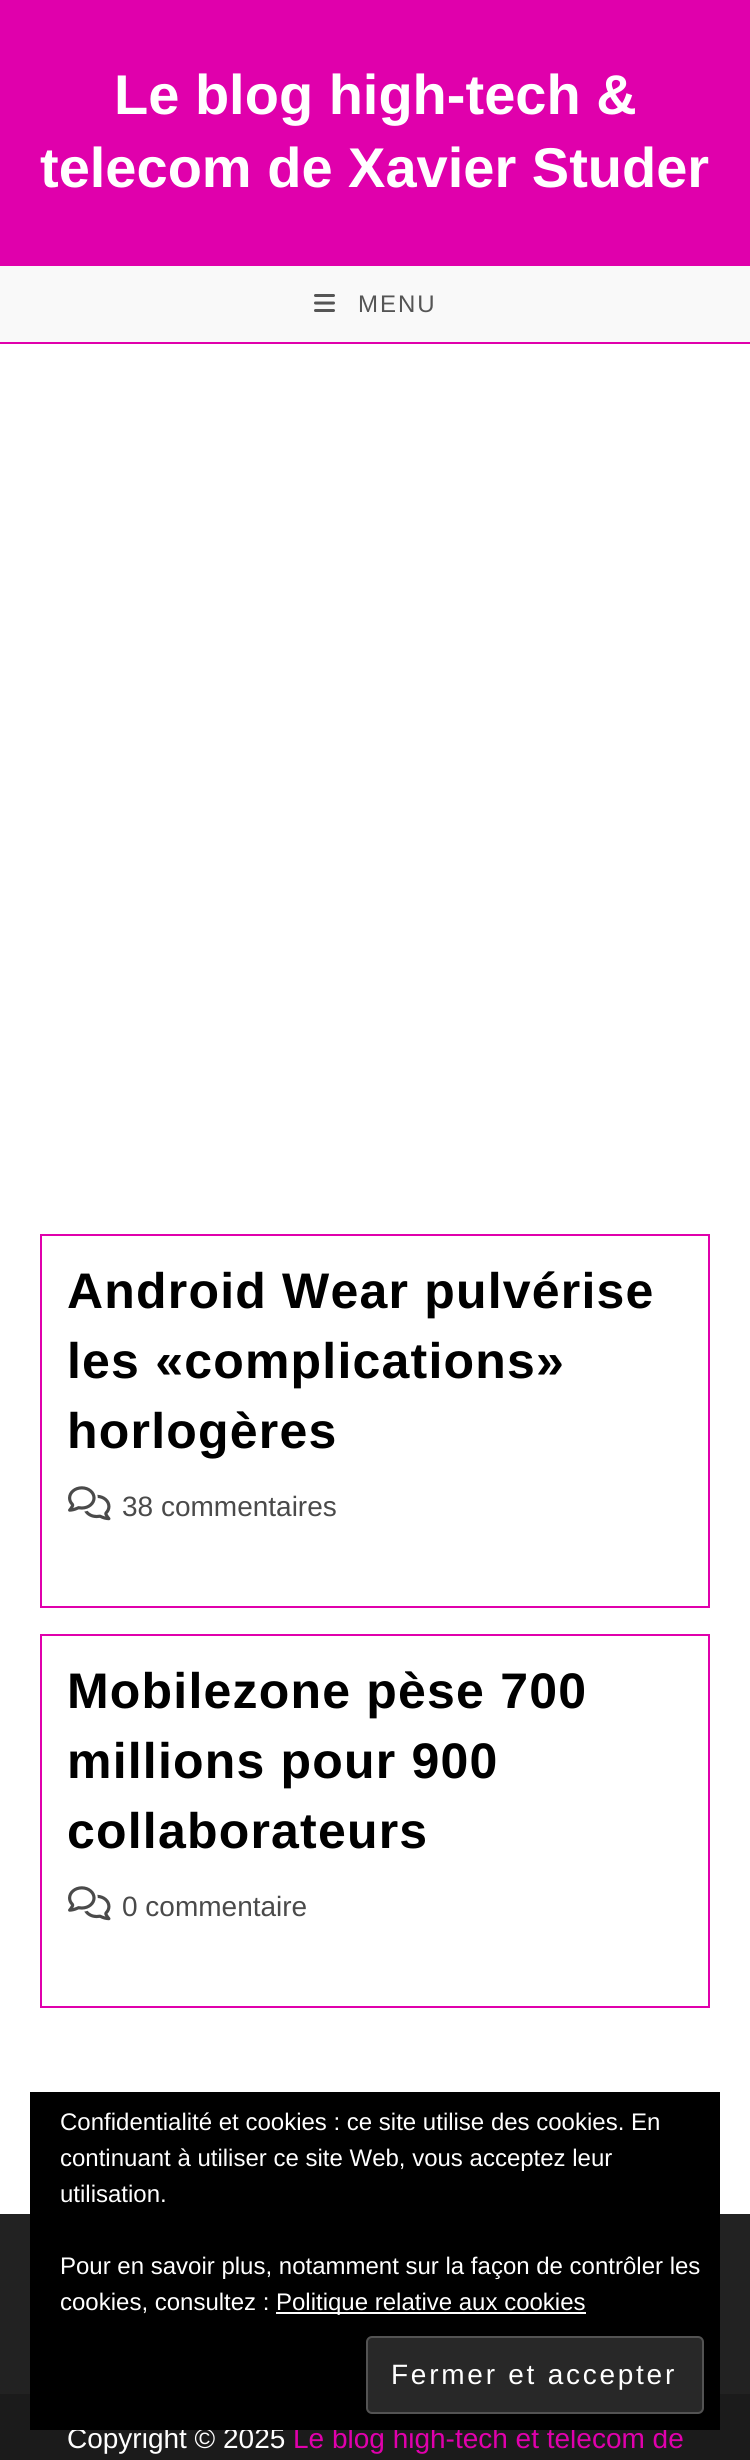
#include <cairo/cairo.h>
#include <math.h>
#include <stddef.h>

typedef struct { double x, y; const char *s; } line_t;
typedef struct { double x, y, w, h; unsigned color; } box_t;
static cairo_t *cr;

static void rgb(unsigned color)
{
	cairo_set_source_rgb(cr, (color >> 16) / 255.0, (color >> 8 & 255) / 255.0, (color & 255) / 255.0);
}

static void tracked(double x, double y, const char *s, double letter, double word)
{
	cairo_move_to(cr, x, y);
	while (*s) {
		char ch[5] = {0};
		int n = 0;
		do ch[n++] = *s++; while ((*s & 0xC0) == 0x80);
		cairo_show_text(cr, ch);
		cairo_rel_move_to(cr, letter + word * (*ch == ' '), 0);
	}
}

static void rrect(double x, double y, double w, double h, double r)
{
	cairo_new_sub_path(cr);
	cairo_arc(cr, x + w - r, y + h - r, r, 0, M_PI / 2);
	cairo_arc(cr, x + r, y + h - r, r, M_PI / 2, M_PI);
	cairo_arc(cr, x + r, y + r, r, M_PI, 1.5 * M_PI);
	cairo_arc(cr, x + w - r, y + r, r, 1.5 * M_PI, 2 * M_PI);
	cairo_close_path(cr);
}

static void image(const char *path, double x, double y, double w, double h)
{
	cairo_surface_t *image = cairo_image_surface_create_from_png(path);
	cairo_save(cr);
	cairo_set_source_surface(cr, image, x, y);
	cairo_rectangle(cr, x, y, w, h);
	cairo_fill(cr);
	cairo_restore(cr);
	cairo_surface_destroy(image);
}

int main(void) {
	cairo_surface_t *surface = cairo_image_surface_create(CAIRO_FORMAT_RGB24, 750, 2460);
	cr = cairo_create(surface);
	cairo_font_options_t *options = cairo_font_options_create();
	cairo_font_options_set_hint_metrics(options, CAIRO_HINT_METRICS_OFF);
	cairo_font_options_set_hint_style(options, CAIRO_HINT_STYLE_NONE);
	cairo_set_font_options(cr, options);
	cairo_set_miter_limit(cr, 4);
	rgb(0xffffff);
	cairo_paint(cr);
	{
		static const box_t items[] = {
			{0, 342, 750, 2, 0xe000ac},
			{0, 0, 750, 266, 0xe000ac},
			{0, 266, 750, 76, 0xf9f9f9},
		};
		for (size_t i = 0; i < sizeof items / sizeof *items; i++) {
			rgb(items[i].color);
			cairo_rectangle(cr, items[i].x, items[i].y, items[i].w, items[i].h);
			cairo_fill(cr);
		}
	}
	image("img/1.png", 314, 294, 21, 18);
	cairo_rectangle(cr, 41, 1235, 668, 372);
	rgb(0xe000ac);
	cairo_stroke(cr);
	image("img/2.png", 68, 1486, 43, 35);
	cairo_rectangle(cr, 41, 1635, 668, 372);
	cairo_stroke(cr);
	image("img/2.png", 68, 1886, 43, 35);
	rgb(0x222222);
	cairo_rectangle(cr, 0, 2214, 750, 180);
	cairo_fill(cr);
	rgb(0x1b1b1b);
	cairo_rectangle(cr, 0, 2394, 750, 66);
	cairo_fill(cr);
	cairo_select_font_face(cr, "Liberation Sans", CAIRO_FONT_SLANT_NORMAL, CAIRO_FONT_WEIGHT_BOLD);
	cairo_set_font_size(cr, 56);
	rgb(0xffffff);
	cairo_move_to(cr, 114, 114);
	cairo_show_text(cr, "Le blog high-tech &");
	cairo_move_to(cr, 40, 187);
	cairo_show_text(cr, "telecom de Xavier Studer");
	cairo_select_font_face(cr, "Liberation Sans", CAIRO_FONT_SLANT_NORMAL, CAIRO_FONT_WEIGHT_NORMAL);
	cairo_set_font_size(cr, 24);
	rgb(0x555555);
	tracked(358, 312, "MENU", 2, 0);
	cairo_select_font_face(cr, "Liberation Sans", CAIRO_FONT_SLANT_NORMAL, CAIRO_FONT_WEIGHT_BOLD);
	cairo_set_font_size(cr, 50);
	rgb(0x000000);
	{
		static const line_t items[] = {
			{67, 1308, "Android Wear pulvérise"},
			{67, 1378, "les «complications»"},
			{67, 1448, "horlogères"},
		};
		for (size_t i = 0; i < sizeof items / sizeof *items; i++) {
			tracked(items[i].x, items[i].y, items[i].s, 1.2, 0);
		}
	}
	cairo_select_font_face(cr, "Liberation Sans", CAIRO_FONT_SLANT_NORMAL, CAIRO_FONT_WEIGHT_NORMAL);
	cairo_set_font_size(cr, 28);
	rgb(0x4a4a4a);
	cairo_move_to(cr, 122, 1516);
	cairo_show_text(cr, "38 commentaires");
	cairo_select_font_face(cr, "Liberation Sans", CAIRO_FONT_SLANT_NORMAL, CAIRO_FONT_WEIGHT_BOLD);
	cairo_set_font_size(cr, 50);
	rgb(0x000000);
	{
		static const line_t items[] = {
			{67, 1708, "Mobilezone pèse 700"},
			{67, 1778, "millions pour 900"},
			{67, 1848, "collaborateurs"},
		};
		for (size_t i = 0; i < sizeof items / sizeof *items; i++) {
			tracked(items[i].x, items[i].y, items[i].s, 1.2, 0);
		}
	}
	cairo_select_font_face(cr, "Liberation Sans", CAIRO_FONT_SLANT_NORMAL, CAIRO_FONT_WEIGHT_NORMAL);
	cairo_set_font_size(cr, 28);
	rgb(0x4a4a4a);
	cairo_move_to(cr, 122, 1916);
	cairo_show_text(cr, "0 commentaire");
	rgb(0xffffff);
	cairo_move_to(cr, 67, 2448);
	cairo_show_text(cr, "Copyright © 2025");
	rgb(0xe000ac);
	cairo_move_to(cr, 293, 2448);
	cairo_show_text(cr, "Le blog high-tech et telecom de");
	rgb(0x000000);
	cairo_rectangle(cr, 30, 2092, 690, 338);
	cairo_fill(cr);
	cairo_set_font_size(cr, 24);
	rgb(0xffffff);
	{
		static const line_t items[] = {
			{60, 2130, "Confidentialité et cookies : ce site utilise des cookies. En"},
			{60, 2166, "continuant à utiliser ce site Web, vous acceptez leur"},
			{60, 2202, "utilisation."},
			{60, 2274, "Pour en savoir plus, notamment sur la façon de contrôler les"},
			{60, 2310, "cookies, consultez :"},
		};
		for (size_t i = 0; i < sizeof items / sizeof *items; i++) {
			cairo_move_to(cr, items[i].x, items[i].y);
			cairo_show_text(cr, items[i].s);
		}
	}
	cairo_rectangle(cr, 276, 2312, 310, 2);
	cairo_fill(cr);
	cairo_move_to(cr, 276, 2310);
	cairo_show_text(cr, "Politique relative aux cookies");
	rgb(0x282828);
	rrect(367, 2337, 336, 76, 5);
	cairo_fill_preserve(cr);
	rgb(0x535353);
	cairo_stroke(cr);
	cairo_set_font_size(cr, 28);
	rgb(0xffffff);
	tracked(391, 2384, "Fermer et accepter", 2.75, 0);
	cairo_surface_write_to_png(surface, "page.png");
	cairo_font_options_destroy(options);
	cairo_destroy(cr);
	cairo_surface_destroy(surface);
	return 0;
}
